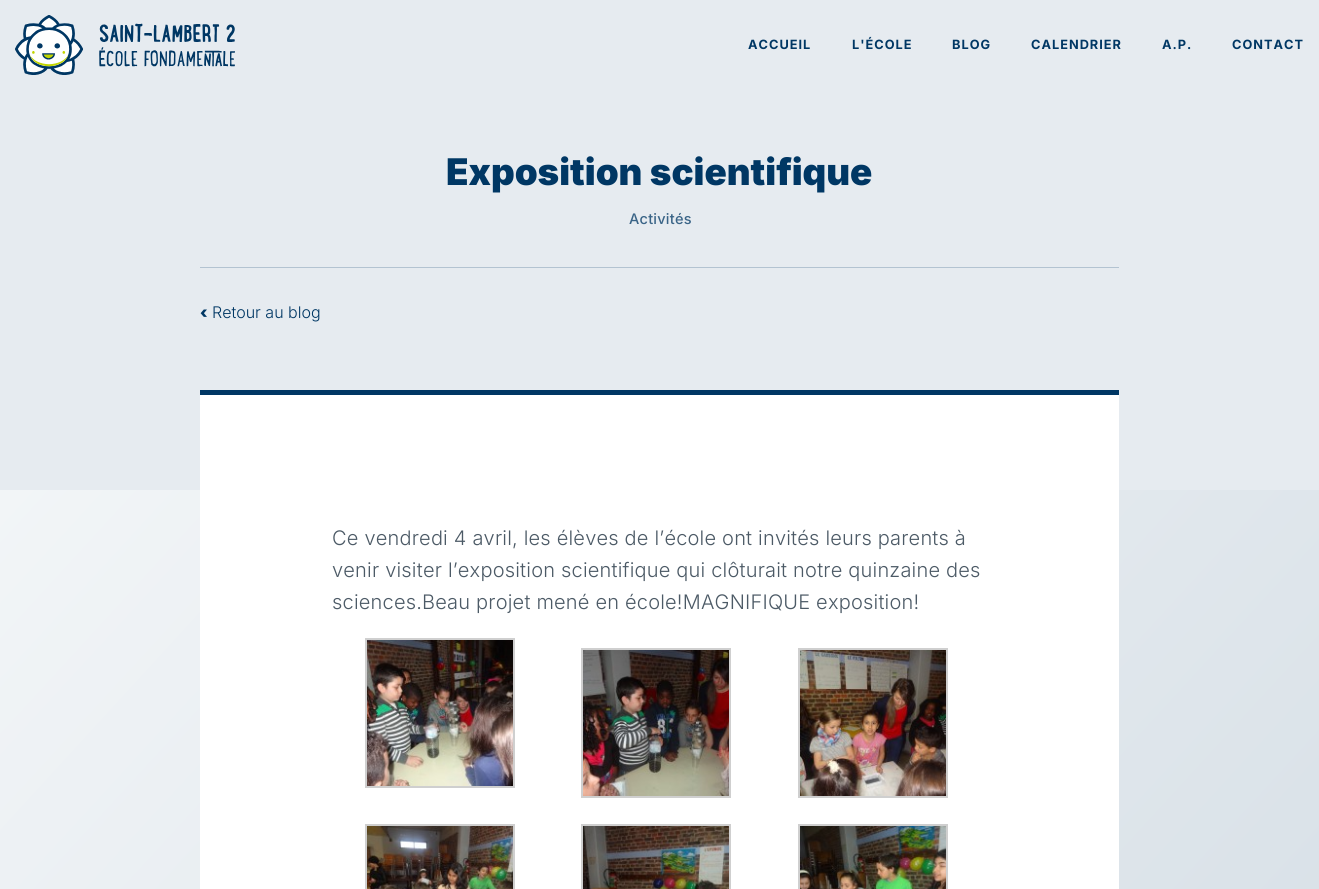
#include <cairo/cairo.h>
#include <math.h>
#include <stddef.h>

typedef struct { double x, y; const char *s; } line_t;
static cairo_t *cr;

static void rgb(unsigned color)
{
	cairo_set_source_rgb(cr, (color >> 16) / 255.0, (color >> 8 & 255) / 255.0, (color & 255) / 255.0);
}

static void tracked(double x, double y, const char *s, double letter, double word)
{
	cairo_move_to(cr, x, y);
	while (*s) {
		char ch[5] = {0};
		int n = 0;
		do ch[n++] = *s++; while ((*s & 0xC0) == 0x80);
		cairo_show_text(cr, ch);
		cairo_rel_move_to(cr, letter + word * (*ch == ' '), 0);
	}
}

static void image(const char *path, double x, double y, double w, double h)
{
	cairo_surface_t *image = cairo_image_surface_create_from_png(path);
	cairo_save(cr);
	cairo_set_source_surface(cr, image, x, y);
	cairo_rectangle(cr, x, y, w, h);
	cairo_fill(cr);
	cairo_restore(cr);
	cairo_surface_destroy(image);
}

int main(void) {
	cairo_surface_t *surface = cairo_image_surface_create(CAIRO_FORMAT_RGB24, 1319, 889);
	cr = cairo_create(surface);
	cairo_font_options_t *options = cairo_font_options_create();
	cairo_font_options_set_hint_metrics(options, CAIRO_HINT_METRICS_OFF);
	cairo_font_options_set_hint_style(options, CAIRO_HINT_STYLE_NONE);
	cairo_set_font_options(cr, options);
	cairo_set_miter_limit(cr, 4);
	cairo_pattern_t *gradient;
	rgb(0xe6ebf0);
	cairo_paint(cr);
	image("img/1.png", 15, 15, 220, 60);
	rgb(0xb3c3d1);
	cairo_rectangle(cr, 200, 267, 919, 1);
	cairo_fill(cr);
	gradient = cairo_pattern_create_linear(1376, 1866, -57, 552);
	cairo_pattern_add_color_stop_rgba(gradient, 0, 0.8, 0.843, 0.878, 1);
	cairo_pattern_add_color_stop_rgba(gradient, 1, 0.949, 0.961, 0.969, 1);
	cairo_set_source(cr, gradient);
	cairo_pattern_destroy(gradient);
	cairo_rectangle(cr, 0, 490, 1319, 399);
	cairo_fill(cr);
	rgb(0xffffff);
	cairo_rectangle(cr, 200, 395, 919, 494);
	cairo_fill(cr);
	rgb(0x003764);
	cairo_rectangle(cr, 200, 390, 919, 5);
	cairo_fill(cr);
	cairo_rectangle(cr, 366, 639, 148, 148);
	rgb(0xcfcfcf);
	cairo_stroke(cr);
	image("img/2.png", 367, 640, 146, 146);
	cairo_rectangle(cr, 582, 649, 148, 148);
	cairo_stroke(cr);
	image("img/3.png", 583, 650, 146, 146);
	cairo_rectangle(cr, 799, 649, 148, 148);
	cairo_stroke(cr);
	image("img/4.png", 800, 650, 146, 146);
	cairo_rectangle(cr, 366, 825, 148, 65);
	cairo_stroke(cr);
	image("img/5.png", 367, 826, 146, 63);
	cairo_rectangle(cr, 582, 825, 148, 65);
	cairo_stroke(cr);
	image("img/6.png", 583, 826, 146, 63);
	cairo_rectangle(cr, 799, 825, 148, 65);
	cairo_stroke(cr);
	image("img/7.png", 800, 826, 146, 63);
	cairo_select_font_face(cr, "Inter", CAIRO_FONT_SLANT_NORMAL, CAIRO_FONT_WEIGHT_BOLD);
	cairo_set_font_size(cr, 12.75);
	rgb(0x003764);
	{
		static const line_t items[] = {
			{748, 49, "ACCUEIL"},
			{852, 49, "L'ÉCOLE"},
			{952, 49, "BLOG"},
			{1031, 49, "CALENDRIER"},
			{1162, 49, "A.P."},
			{1232, 49, "CONTACT"},
		};
		for (size_t i = 0; i < sizeof items / sizeof *items; i++) {
			tracked(items[i].x, items[i].y, items[i].s, 1, 0);
		}
	}
	cairo_select_font_face(cr, "Inter Black", CAIRO_FONT_SLANT_NORMAL, CAIRO_FONT_WEIGHT_NORMAL);
	cairo_set_font_size(cr, 36.75);
	cairo_move_to(cr, 446, 185);
	cairo_show_text(cr, "Exposition scientifique");
	cairo_select_font_face(cr, "Inter Medium", CAIRO_FONT_SLANT_NORMAL, CAIRO_FONT_WEIGHT_NORMAL);
	cairo_set_font_size(cr, 14.5);
	rgb(0x3a6487);
	tracked(629, 224, "Activités", 0.25, 0);
	cairo_select_font_face(cr, "Inter Black", CAIRO_FONT_SLANT_NORMAL, CAIRO_FONT_WEIGHT_NORMAL);
	cairo_set_font_size(cr, 16);
	rgb(0x003764);
	cairo_move_to(cr, 200, 318);
	cairo_show_text(cr, "‹");
	cairo_select_font_face(cr, "Inter Light", CAIRO_FONT_SLANT_NORMAL, CAIRO_FONT_WEIGHT_NORMAL);
	cairo_move_to(cr, 212, 318);
	cairo_show_text(cr, "Retour au blog");
	cairo_set_font_size(cr, 20);
	rgb(0x4c5a66);
	{
		static const line_t items[] = {
			{332, 545, "Ce vendredi 4 avril, les élèves de l’école ont invités leurs parents à"},
			{332, 577, "venir visiter l’exposition scientifique qui clôturait notre quinzaine des"},
			{332, 609, "sciences.Beau projet mené en école!MAGNIFIQUE exposition!"},
		};
		for (size_t i = 0; i < sizeof items / sizeof *items; i++) {
			tracked(items[i].x, items[i].y, items[i].s, 0.2, 0);
		}
	}
	cairo_surface_write_to_png(surface, "page.png");
	cairo_font_options_destroy(options);
	cairo_destroy(cr);
	cairo_surface_destroy(surface);
	return 0;
}
